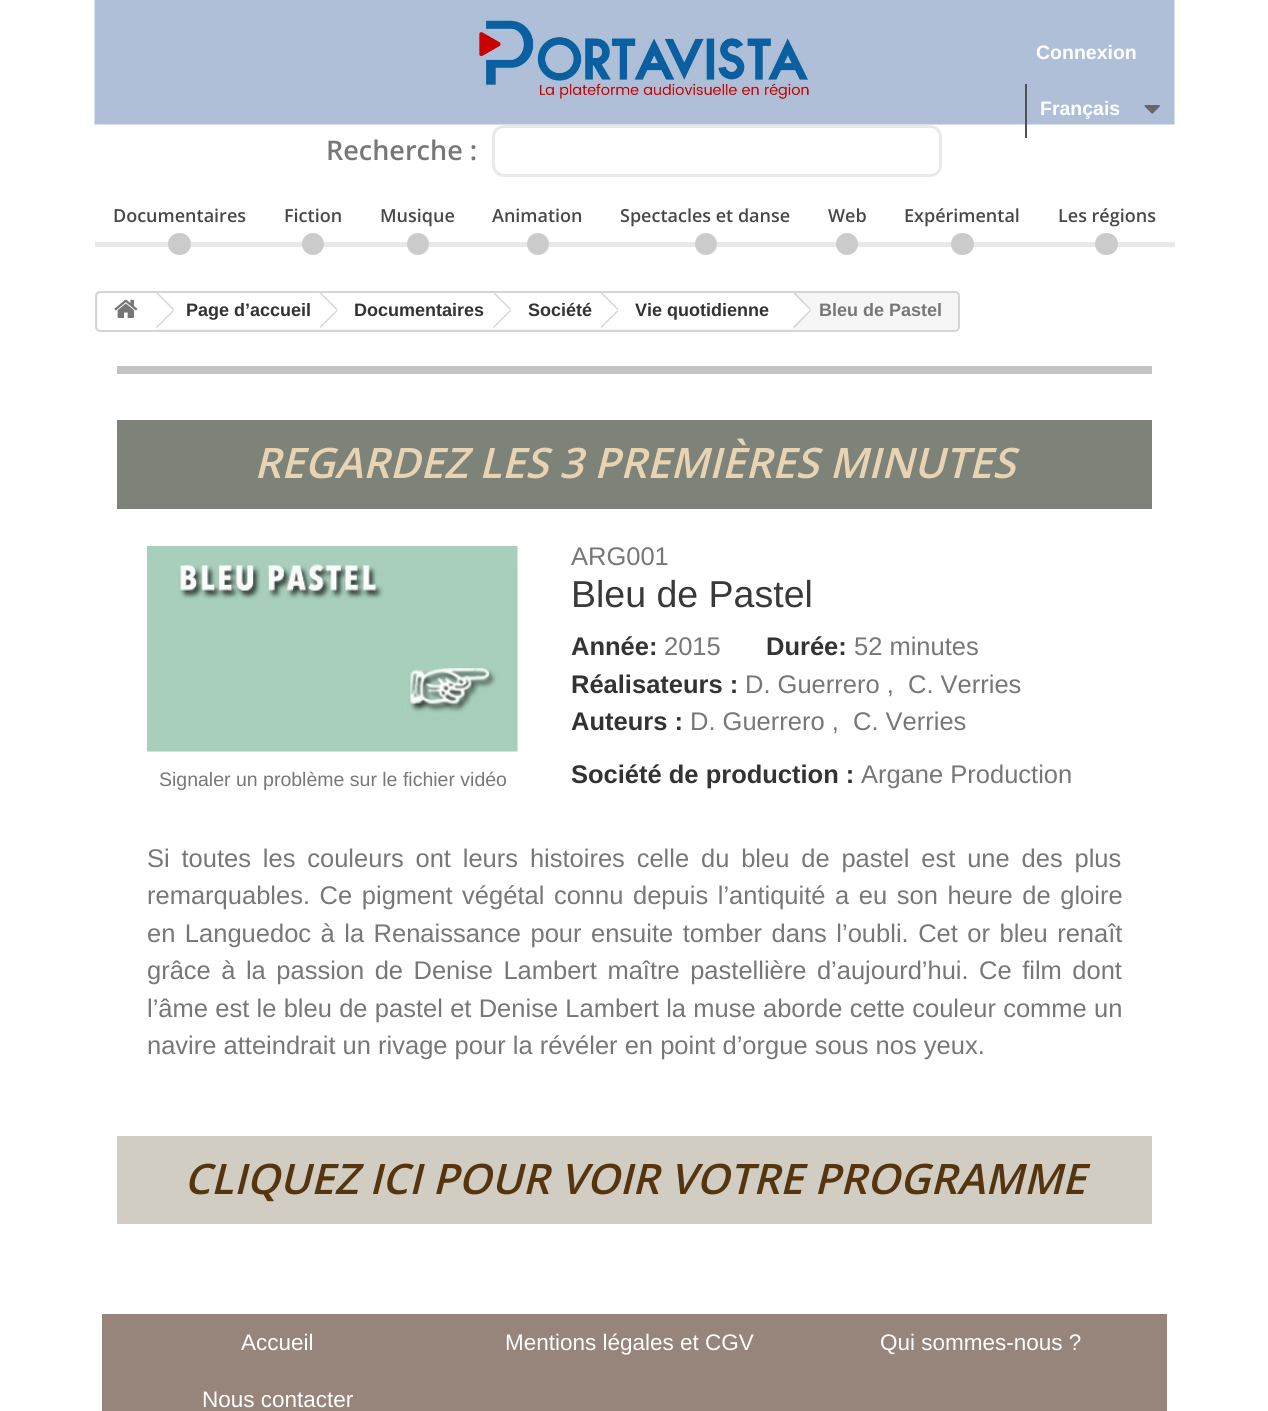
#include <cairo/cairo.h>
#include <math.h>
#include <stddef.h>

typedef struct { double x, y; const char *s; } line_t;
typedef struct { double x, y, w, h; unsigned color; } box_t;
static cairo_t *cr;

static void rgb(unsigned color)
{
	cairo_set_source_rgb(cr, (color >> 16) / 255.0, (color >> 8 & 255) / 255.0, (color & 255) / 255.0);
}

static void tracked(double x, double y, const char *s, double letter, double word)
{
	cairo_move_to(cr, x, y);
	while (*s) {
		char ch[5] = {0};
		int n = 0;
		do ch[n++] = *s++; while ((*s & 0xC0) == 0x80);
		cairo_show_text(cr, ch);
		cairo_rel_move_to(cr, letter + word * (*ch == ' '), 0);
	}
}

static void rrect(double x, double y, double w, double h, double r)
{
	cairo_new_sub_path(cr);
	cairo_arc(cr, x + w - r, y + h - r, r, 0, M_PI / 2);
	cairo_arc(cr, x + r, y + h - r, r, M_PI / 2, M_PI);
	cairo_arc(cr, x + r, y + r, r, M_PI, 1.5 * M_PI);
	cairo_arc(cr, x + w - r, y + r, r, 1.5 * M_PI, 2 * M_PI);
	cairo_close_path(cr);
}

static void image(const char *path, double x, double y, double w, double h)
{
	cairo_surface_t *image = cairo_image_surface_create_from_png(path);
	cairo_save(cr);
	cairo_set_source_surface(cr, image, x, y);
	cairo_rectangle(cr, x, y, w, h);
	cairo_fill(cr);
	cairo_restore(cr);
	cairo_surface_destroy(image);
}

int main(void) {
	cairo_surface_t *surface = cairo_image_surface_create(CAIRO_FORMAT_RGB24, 1268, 1411);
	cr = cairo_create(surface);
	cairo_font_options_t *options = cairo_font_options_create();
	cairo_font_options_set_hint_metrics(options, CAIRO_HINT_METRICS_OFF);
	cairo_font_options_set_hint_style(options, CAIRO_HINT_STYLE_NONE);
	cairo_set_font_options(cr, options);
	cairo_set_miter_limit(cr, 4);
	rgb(0xffffff);
	cairo_paint(cr);
	image("img/1.png", 94, 0, 1081, 125);
	rgb(0x515151);
	cairo_rectangle(cr, 1025, 84, 2, 54);
	cairo_fill(cr);
	image("img/2.png", 1144, 105, 16, 9);
	rrect(493.5, 126.5, 447, 49, 10.5);
	rgb(0xe9e9e9);
	cairo_set_line_width(cr, 3);
	cairo_stroke(cr);
	cairo_rectangle(cr, 95, 242, 1080, 5);
	cairo_fill(cr);
	rgb(0xcbcbcb);
	rrect(171, 236, 17, 16, 8);
	cairo_fill_preserve(cr);
	cairo_set_line_width(cr, 6);
	cairo_stroke(cr);
	cairo_arc(cr, 313, 244, 8, 0, 2 * M_PI);
	cairo_fill_preserve(cr);
	cairo_stroke(cr);
	cairo_arc(cr, 418, 244, 8, 0, 2 * M_PI);
	cairo_fill_preserve(cr);
	cairo_stroke(cr);
	cairo_arc(cr, 538, 244, 8, 0, 2 * M_PI);
	cairo_fill_preserve(cr);
	cairo_stroke(cr);
	cairo_arc(cr, 706, 244, 8, 0, 2 * M_PI);
	cairo_fill_preserve(cr);
	cairo_stroke(cr);
	cairo_arc(cr, 847, 244, 8, 0, 2 * M_PI);
	cairo_fill_preserve(cr);
	cairo_stroke(cr);
	rrect(954, 236, 17, 16, 8);
	cairo_fill_preserve(cr);
	cairo_stroke(cr);
	rrect(1098, 236, 17, 16, 8);
	cairo_fill_preserve(cr);
	cairo_stroke(cr);
	rgb(0xf6f6f6);
	rrect(96, 292, 863, 39, 4);
	cairo_fill_preserve(cr);
	rgb(0xd6d4d4);
	cairo_set_line_width(cr, 2);
	cairo_stroke(cr);
	rgb(0xffffff);
	cairo_new_path(cr);
	cairo_move_to(cr, 103, 293);
	cairo_line_to(cr, 155, 293);
	cairo_line_to(cr, 155, 330);
	cairo_line_to(cr, 103, 330);
	cairo_curve_to(cr, 100, 330, 98, 328, 98, 325);
	cairo_line_to(cr, 98, 298);
	cairo_curve_to(cr, 98, 295, 100, 293, 103, 293);
	cairo_close_path(cr);
	cairo_fill(cr);
	image("img/3.png", 114, 299, 24, 19);
	cairo_rectangle(cr, 155, 293, 166, 36);
	cairo_fill(cr);
	rgb(0xd6d4d4);
	cairo_new_path(cr);
	cairo_move_to(cr, 158, 293);
	cairo_line_to(cr, 174, 309);
	cairo_line_to(cr, 173, 310);
	cairo_line_to(cr, 156, 293);
	cairo_close_path(cr);
	cairo_move_to(cr, 173, 310);
	cairo_line_to(cr, 174, 311);
	cairo_line_to(cr, 157, 328);
	cairo_line_to(cr, 156, 327);
	cairo_close_path(cr);
	cairo_fill(cr);
	rgb(0xffffff);
	cairo_new_path(cr);
	cairo_move_to(cr, 336.5, 293);
	cairo_line_to(cr, 332.5, 293);
	cairo_line_to(cr, 317.5, 308);
	cairo_curve_to(cr, 316.5, 309, 316.5, 311, 317.5, 312.5);
	cairo_line_to(cr, 332.5, 327);
	cairo_curve_to(cr, 333.5, 328.5, 335.5, 328.5, 336.5, 327);
	cairo_line_to(cr, 351.5, 312.5);
	cairo_curve_to(cr, 352.5, 311, 352.5, 309, 351.5, 308);
	cairo_close_path(cr);
	cairo_fill(cr);
	cairo_rectangle(cr, 321, 293, 174, 36);
	cairo_fill(cr);
	rgb(0xd6d4d4);
	cairo_new_path(cr);
	cairo_move_to(cr, 321.5, 293);
	cairo_line_to(cr, 337.5, 309);
	cairo_line_to(cr, 336.5, 310);
	cairo_line_to(cr, 319.5, 293);
	cairo_close_path(cr);
	cairo_move_to(cr, 336.5, 310);
	cairo_line_to(cr, 337.5, 311);
	cairo_line_to(cr, 320.5, 328);
	cairo_line_to(cr, 319.5, 327);
	cairo_close_path(cr);
	cairo_fill(cr);
	rgb(0xffffff);
	cairo_new_path(cr);
	cairo_move_to(cr, 510.5, 293);
	cairo_line_to(cr, 506, 293);
	cairo_line_to(cr, 491, 308);
	cairo_curve_to(cr, 490, 309, 490, 311, 491, 312.5);
	cairo_line_to(cr, 506, 327);
	cairo_curve_to(cr, 507, 328.5, 509, 328.5, 510.5, 327);
	cairo_line_to(cr, 525, 312.5);
	cairo_curve_to(cr, 526.5, 311, 526.5, 309, 525, 308);
	cairo_close_path(cr);
	cairo_fill(cr);
	cairo_rectangle(cr, 495, 293, 107, 36);
	cairo_fill(cr);
	rgb(0xd6d4d4);
	cairo_new_path(cr);
	cairo_move_to(cr, 495, 293);
	cairo_line_to(cr, 511, 309);
	cairo_line_to(cr, 510, 310);
	cairo_line_to(cr, 493, 293);
	cairo_close_path(cr);
	cairo_move_to(cr, 510, 310);
	cairo_line_to(cr, 511, 311);
	cairo_line_to(cr, 494, 328);
	cairo_line_to(cr, 493, 327);
	cairo_close_path(cr);
	cairo_fill(cr);
	rgb(0xffffff);
	cairo_new_path(cr);
	cairo_move_to(cr, 618, 293);
	cairo_line_to(cr, 613.5, 293);
	cairo_line_to(cr, 598.5, 308);
	cairo_curve_to(cr, 597.5, 309, 597.5, 311, 598.5, 312.5);
	cairo_line_to(cr, 613.5, 327);
	cairo_curve_to(cr, 614.5, 328.5, 616.5, 328.5, 618, 327);
	cairo_line_to(cr, 632.5, 312.5);
	cairo_curve_to(cr, 634, 311, 634, 309, 632.5, 308);
	cairo_close_path(cr);
	cairo_fill(cr);
	cairo_rectangle(cr, 602, 293, 190, 36);
	cairo_fill(cr);
	rgb(0xd6d4d4);
	cairo_new_path(cr);
	cairo_move_to(cr, 602.5, 293);
	cairo_line_to(cr, 618.5, 309);
	cairo_line_to(cr, 617.5, 310);
	cairo_line_to(cr, 600.5, 293);
	cairo_close_path(cr);
	cairo_move_to(cr, 617.5, 310);
	cairo_line_to(cr, 618.5, 311);
	cairo_line_to(cr, 601.5, 328);
	cairo_line_to(cr, 600.5, 327);
	cairo_close_path(cr);
	cairo_fill(cr);
	rgb(0xffffff);
	cairo_new_path(cr);
	cairo_move_to(cr, 795.5, 293);
	cairo_line_to(cr, 791, 293);
	cairo_line_to(cr, 776, 308);
	cairo_curve_to(cr, 775, 309, 775, 311, 776, 312.5);
	cairo_line_to(cr, 791, 327);
	cairo_curve_to(cr, 792, 328.5, 794, 328.5, 795.5, 327);
	cairo_line_to(cr, 810, 312.5);
	cairo_curve_to(cr, 811.5, 311, 811.5, 309, 810, 308);
	cairo_close_path(cr);
	cairo_fill(cr);
	rgb(0xd6d4d4);
	cairo_new_path(cr);
	cairo_move_to(cr, 795.5, 293);
	cairo_line_to(cr, 811, 309);
	cairo_line_to(cr, 810, 310);
	cairo_line_to(cr, 793, 293);
	cairo_close_path(cr);
	cairo_move_to(cr, 810, 310);
	cairo_line_to(cr, 811, 311);
	cairo_line_to(cr, 794.5, 328);
	cairo_line_to(cr, 793, 327);
	cairo_close_path(cr);
	cairo_fill(cr);
	{
		static const box_t items[] = {
			{117, 366, 1035, 8, 0xc4c4c4},
			{117, 420, 1035, 89, 0x7d8379},
			{147, 546, 371, 206, 0xfbfbfb},
		};
		for (size_t i = 0; i < sizeof items / sizeof *items; i++) {
			rgb(items[i].color);
			cairo_rectangle(cr, items[i].x, items[i].y, items[i].w, items[i].h);
			cairo_fill(cr);
		}
	}
	image("img/4.png", 147, 546, 371, 206);
	rgb(0xd1cdc2);
	cairo_rectangle(cr, 117, 1136, 1035, 88);
	cairo_fill(cr);
	rgb(0x97847b);
	cairo_rectangle(cr, 102, 1314, 1065, 97);
	cairo_fill(cr);
	cairo_select_font_face(cr, "Liberation Sans", CAIRO_FONT_SLANT_NORMAL, CAIRO_FONT_WEIGHT_BOLD);
	cairo_set_font_size(cr, 19.5);
	rgb(0xffffff);
	cairo_move_to(cr, 1036, 59);
	cairo_show_text(cr, "Connexion");
	cairo_move_to(cr, 1040, 115);
	cairo_show_text(cr, "Français");
	cairo_select_font_face(cr, "Open Sans SemiBold", CAIRO_FONT_SLANT_NORMAL, CAIRO_FONT_WEIGHT_NORMAL);
	cairo_set_font_size(cr, 27);
	rgb(0x777777);
	cairo_move_to(cr, 326, 160);
	cairo_show_text(cr, "Recherche :");
	cairo_set_font_size(cr, 18);
	rgb(0x484848);
	{
		static const line_t items[] = {
			{113, 222, "Documentaires"},
			{284, 222, "Fiction"},
			{380, 222, "Musique"},
			{492, 222, "Animation"},
			{620, 222, "Spectacles et danse"},
			{828, 222, "Web"},
			{904, 222, "Expérimental"},
			{1058, 222, "Les régions"},
		};
		for (size_t i = 0; i < sizeof items / sizeof *items; i++) {
			cairo_move_to(cr, items[i].x, items[i].y);
			cairo_show_text(cr, items[i].s);
		}
	}
	cairo_select_font_face(cr, "Liberation Sans", CAIRO_FONT_SLANT_NORMAL, CAIRO_FONT_WEIGHT_BOLD);
	rgb(0x333333);
	{
		static const line_t items[] = {
			{186, 316, "Page d’accueil"},
			{354, 316, "Documentaires"},
			{528, 316, "Société"},
			{635, 316, "Vie quotidienne"},
		};
		for (size_t i = 0; i < sizeof items / sizeof *items; i++) {
			cairo_move_to(cr, items[i].x, items[i].y);
			cairo_show_text(cr, items[i].s);
		}
	}
	rgb(0x777777);
	cairo_move_to(cr, 819, 316);
	cairo_show_text(cr, "Bleu de Pastel");
	cairo_select_font_face(cr, "Open Sans SemiBold", CAIRO_FONT_SLANT_ITALIC, CAIRO_FONT_WEIGHT_NORMAL);
	cairo_set_font_size(cr, 42);
	rgb(0xe8d4b3);
	cairo_move_to(cr, 254, 478);
	cairo_show_text(cr, "REGARDEZ LES 3 PREMIÈRES MINUTES");
	cairo_select_font_face(cr, "Liberation Sans", CAIRO_FONT_SLANT_NORMAL, CAIRO_FONT_WEIGHT_NORMAL);
	cairo_set_font_size(cr, 19.5);
	rgb(0x777777);
	cairo_move_to(cr, 159, 786);
	cairo_show_text(cr, "Signaler un problème sur le fichier vidéo");
	cairo_set_font_size(cr, 25.5);
	cairo_move_to(cr, 571, 565);
	cairo_show_text(cr, "ARG001");
	cairo_set_font_size(cr, 37.5);
	rgb(0x3a3939);
	cairo_move_to(cr, 571, 607);
	cairo_show_text(cr, "Bleu de Pastel");
	cairo_select_font_face(cr, "Liberation Sans", CAIRO_FONT_SLANT_NORMAL, CAIRO_FONT_WEIGHT_BOLD);
	cairo_set_font_size(cr, 25.5);
	rgb(0x333333);
	cairo_move_to(cr, 571, 655);
	cairo_show_text(cr, "Année:");
	cairo_select_font_face(cr, "Liberation Sans", CAIRO_FONT_SLANT_NORMAL, CAIRO_FONT_WEIGHT_NORMAL);
	rgb(0x777777);
	cairo_move_to(cr, 664, 655);
	cairo_show_text(cr, "2015");
	cairo_select_font_face(cr, "Liberation Sans", CAIRO_FONT_SLANT_NORMAL, CAIRO_FONT_WEIGHT_BOLD);
	rgb(0x333333);
	cairo_move_to(cr, 766, 655);
	cairo_show_text(cr, "Durée:");
	cairo_select_font_face(cr, "Liberation Sans", CAIRO_FONT_SLANT_NORMAL, CAIRO_FONT_WEIGHT_NORMAL);
	rgb(0x777777);
	cairo_move_to(cr, 854, 655);
	cairo_show_text(cr, "52 minutes");
	cairo_select_font_face(cr, "Liberation Sans", CAIRO_FONT_SLANT_NORMAL, CAIRO_FONT_WEIGHT_BOLD);
	rgb(0x333333);
	cairo_move_to(cr, 571, 693);
	cairo_show_text(cr, "Réalisateurs :");
	cairo_select_font_face(cr, "Liberation Sans", CAIRO_FONT_SLANT_NORMAL, CAIRO_FONT_WEIGHT_NORMAL);
	rgb(0x777777);
	cairo_move_to(cr, 745, 693);
	cairo_show_text(cr, "D. Guerrero ,");
	cairo_move_to(cr, 908, 693);
	cairo_show_text(cr, "C. Verries");
	cairo_select_font_face(cr, "Liberation Sans", CAIRO_FONT_SLANT_NORMAL, CAIRO_FONT_WEIGHT_BOLD);
	rgb(0x333333);
	cairo_move_to(cr, 571, 730);
	cairo_show_text(cr, "Auteurs :");
	cairo_select_font_face(cr, "Liberation Sans", CAIRO_FONT_SLANT_NORMAL, CAIRO_FONT_WEIGHT_NORMAL);
	rgb(0x777777);
	cairo_move_to(cr, 690, 730);
	cairo_show_text(cr, "D. Guerrero ,");
	cairo_move_to(cr, 853, 730);
	cairo_show_text(cr, "C. Verries");
	cairo_select_font_face(cr, "Liberation Sans", CAIRO_FONT_SLANT_NORMAL, CAIRO_FONT_WEIGHT_BOLD);
	rgb(0x333333);
	cairo_move_to(cr, 571, 783);
	cairo_show_text(cr, "Société de production :");
	cairo_select_font_face(cr, "Liberation Sans", CAIRO_FONT_SLANT_NORMAL, CAIRO_FONT_WEIGHT_NORMAL);
	rgb(0x777777);
	cairo_move_to(cr, 861, 783);
	cairo_show_text(cr, "Argane Production");
	tracked(147, 867, "Si toutes les couleurs ont leurs histoires celle du bleu de pastel est une des plus", 0, 4.75);
	tracked(147, 904, "remarquables. Ce pigment végétal connu depuis l’antiquité a eu son heure de gloire", 0, 2.5);
	tracked(147, 942, "en Languedoc à la Renaissance pour ensuite tomber dans l’oubli. Cet or bleu renaît", 0, 2.4);
	tracked(147, 979, "grâce à la passion de Denise Lambert maître pastellière d’aujourd’hui. Ce film dont", 0, 3.4);
	tracked(147, 1017, "l’âme est le bleu de pastel et Denise Lambert la muse aborde cette couleur comme un", 0, 0.2);
	cairo_move_to(cr, 147, 1054);
	cairo_show_text(cr, "navire atteindrait un rivage pour la révéler en point d’orgue sous nos yeux.");
	cairo_select_font_face(cr, "Open Sans SemiBold", CAIRO_FONT_SLANT_ITALIC, CAIRO_FONT_WEIGHT_NORMAL);
	cairo_set_font_size(cr, 42);
	rgb(0x55350f);
	cairo_move_to(cr, 184, 1194);
	cairo_show_text(cr, "CLIQUEZ ICI POUR VOIR VOTRE PROGRAMME");
	cairo_select_font_face(cr, "Liberation Sans", CAIRO_FONT_SLANT_NORMAL, CAIRO_FONT_WEIGHT_NORMAL);
	cairo_set_font_size(cr, 22.5);
	rgb(0xffffff);
	{
		static const line_t items[] = {
			{241, 1350, "Accueil"},
			{505, 1350, "Mentions légales et CGV"},
			{880, 1350, "Qui sommes-nous ?"},
			{202, 1407, "Nous contacter"},
		};
		for (size_t i = 0; i < sizeof items / sizeof *items; i++) {
			cairo_move_to(cr, items[i].x, items[i].y);
			cairo_show_text(cr, items[i].s);
		}
	}
	cairo_surface_write_to_png(surface, "page.png");
	cairo_font_options_destroy(options);
	cairo_destroy(cr);
	cairo_surface_destroy(surface);
	return 0;
}
